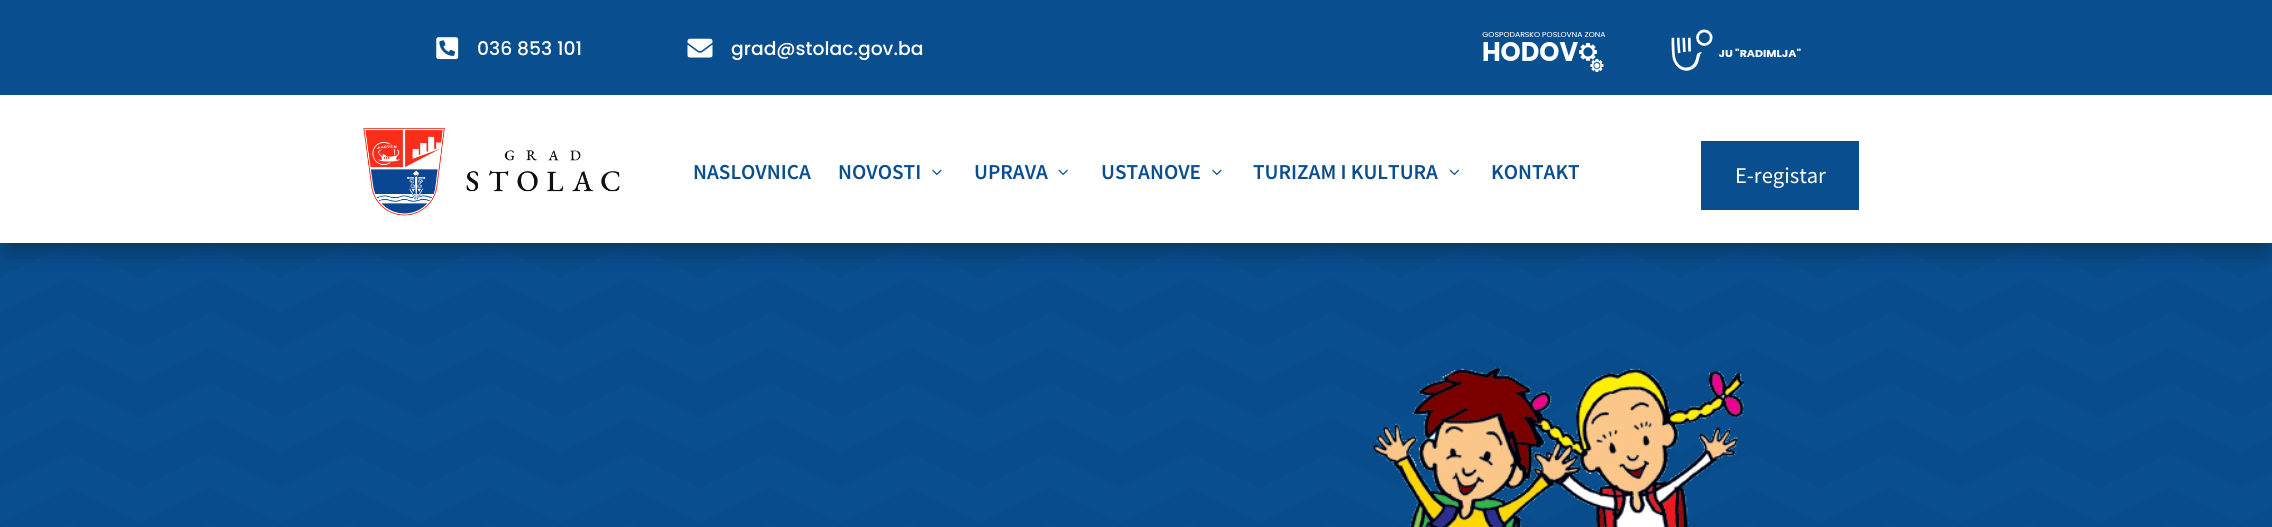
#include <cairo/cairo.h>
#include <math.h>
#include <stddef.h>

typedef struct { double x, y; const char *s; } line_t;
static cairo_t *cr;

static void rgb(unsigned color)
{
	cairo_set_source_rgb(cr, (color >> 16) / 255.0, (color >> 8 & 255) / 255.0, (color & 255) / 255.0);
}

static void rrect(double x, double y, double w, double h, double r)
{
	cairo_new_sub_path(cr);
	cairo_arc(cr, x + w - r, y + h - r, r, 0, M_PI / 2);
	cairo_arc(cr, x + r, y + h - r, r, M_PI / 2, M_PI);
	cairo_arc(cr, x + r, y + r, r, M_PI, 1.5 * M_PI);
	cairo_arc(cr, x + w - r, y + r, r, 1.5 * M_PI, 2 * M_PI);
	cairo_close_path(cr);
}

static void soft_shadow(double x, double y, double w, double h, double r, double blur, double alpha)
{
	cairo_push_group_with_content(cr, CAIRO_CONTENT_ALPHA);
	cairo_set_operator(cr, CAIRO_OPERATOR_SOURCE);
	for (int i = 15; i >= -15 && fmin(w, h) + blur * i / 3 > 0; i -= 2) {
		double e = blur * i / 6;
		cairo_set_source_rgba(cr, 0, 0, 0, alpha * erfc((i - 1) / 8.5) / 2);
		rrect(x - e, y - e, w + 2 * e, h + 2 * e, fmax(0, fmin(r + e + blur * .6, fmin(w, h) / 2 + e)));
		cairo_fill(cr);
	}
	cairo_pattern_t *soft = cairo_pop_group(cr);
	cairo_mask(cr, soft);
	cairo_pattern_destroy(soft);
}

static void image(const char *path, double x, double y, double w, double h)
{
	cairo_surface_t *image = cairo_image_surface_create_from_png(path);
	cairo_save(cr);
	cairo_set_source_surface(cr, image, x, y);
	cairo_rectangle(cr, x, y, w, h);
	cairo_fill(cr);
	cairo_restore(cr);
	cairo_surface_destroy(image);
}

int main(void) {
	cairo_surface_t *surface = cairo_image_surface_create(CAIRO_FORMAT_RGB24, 2272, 527);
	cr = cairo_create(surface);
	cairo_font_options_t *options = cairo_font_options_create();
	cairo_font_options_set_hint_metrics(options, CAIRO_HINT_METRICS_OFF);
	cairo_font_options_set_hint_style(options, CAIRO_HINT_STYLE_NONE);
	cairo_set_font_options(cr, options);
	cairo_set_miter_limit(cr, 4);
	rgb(0x094e8f);
	cairo_paint(cr);
	image("img/1.png", 436, 37, 23, 23);
	image("img/2.png", 687, 38, 26, 20);
	image("img/3.png", 1482, 32, 124, 40);
	image("img/4.png", 1671, 29, 130, 42);
	image("img/9.png", 0, 243, 2272, 284);
	rgb(0x000000);
	soft_shadow(8, 118, 2257, 132, 0, 11, 0.3);
	rgb(0xffffff);
	cairo_rectangle(cr, 0, 95, 2272, 148);
	cairo_fill(cr);
	image("img/5.png", 363, 128, 257, 88);
	image("img/6.png", 932, 169, 10, 6);
	image("img/7.png", 1058, 169, 10, 6);
	image("img/6.png", 1212, 169, 10, 6);
	image("img/8.png", 1449, 169, 10, 6);
	rgb(0x094e8f);
	cairo_rectangle(cr, 1701, 141, 158, 69);
	cairo_fill(cr);
	image("img/10.png", 1373, 367, 371, 160);
	cairo_select_font_face(cr, "Poppins Medium", CAIRO_FONT_SLANT_NORMAL, CAIRO_FONT_WEIGHT_NORMAL);
	cairo_set_font_size(cr, 18.75);
	rgb(0xffffff);
	cairo_move_to(cr, 477, 55);
	cairo_show_text(cr, "036 853 101");
	cairo_move_to(cr, 731, 55);
	cairo_show_text(cr, "grad@stolac.gov.ba");
	cairo_select_font_face(cr, "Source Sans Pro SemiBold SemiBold", CAIRO_FONT_SLANT_NORMAL, CAIRO_FONT_WEIGHT_NORMAL);
	cairo_set_font_size(cr, 21.25);
	rgb(0x094e8f);
	{
		static const line_t items[] = {
			{693, 179, "NASLOVNICA"},
			{838, 179, "NOVOSTI"},
			{974, 179, "UPRAVA"},
			{1101, 179, "USTANOVE"},
			{1253, 179, "TURIZAM I KULTURA"},
			{1491, 179, "KONTAKT"},
		};
		for (size_t i = 0; i < sizeof items / sizeof *items; i++) {
			cairo_move_to(cr, items[i].x, items[i].y);
			cairo_show_text(cr, items[i].s);
		}
	}
	cairo_select_font_face(cr, "Source Sans Pro", CAIRO_FONT_SLANT_NORMAL, CAIRO_FONT_WEIGHT_NORMAL);
	cairo_set_font_size(cr, 22.5);
	rgb(0xffffff);
	cairo_move_to(cr, 1735, 183);
	cairo_show_text(cr, "E-registar");
	cairo_surface_write_to_png(surface, "page.png");
	cairo_font_options_destroy(options);
	cairo_destroy(cr);
	cairo_surface_destroy(surface);
	return 0;
}
